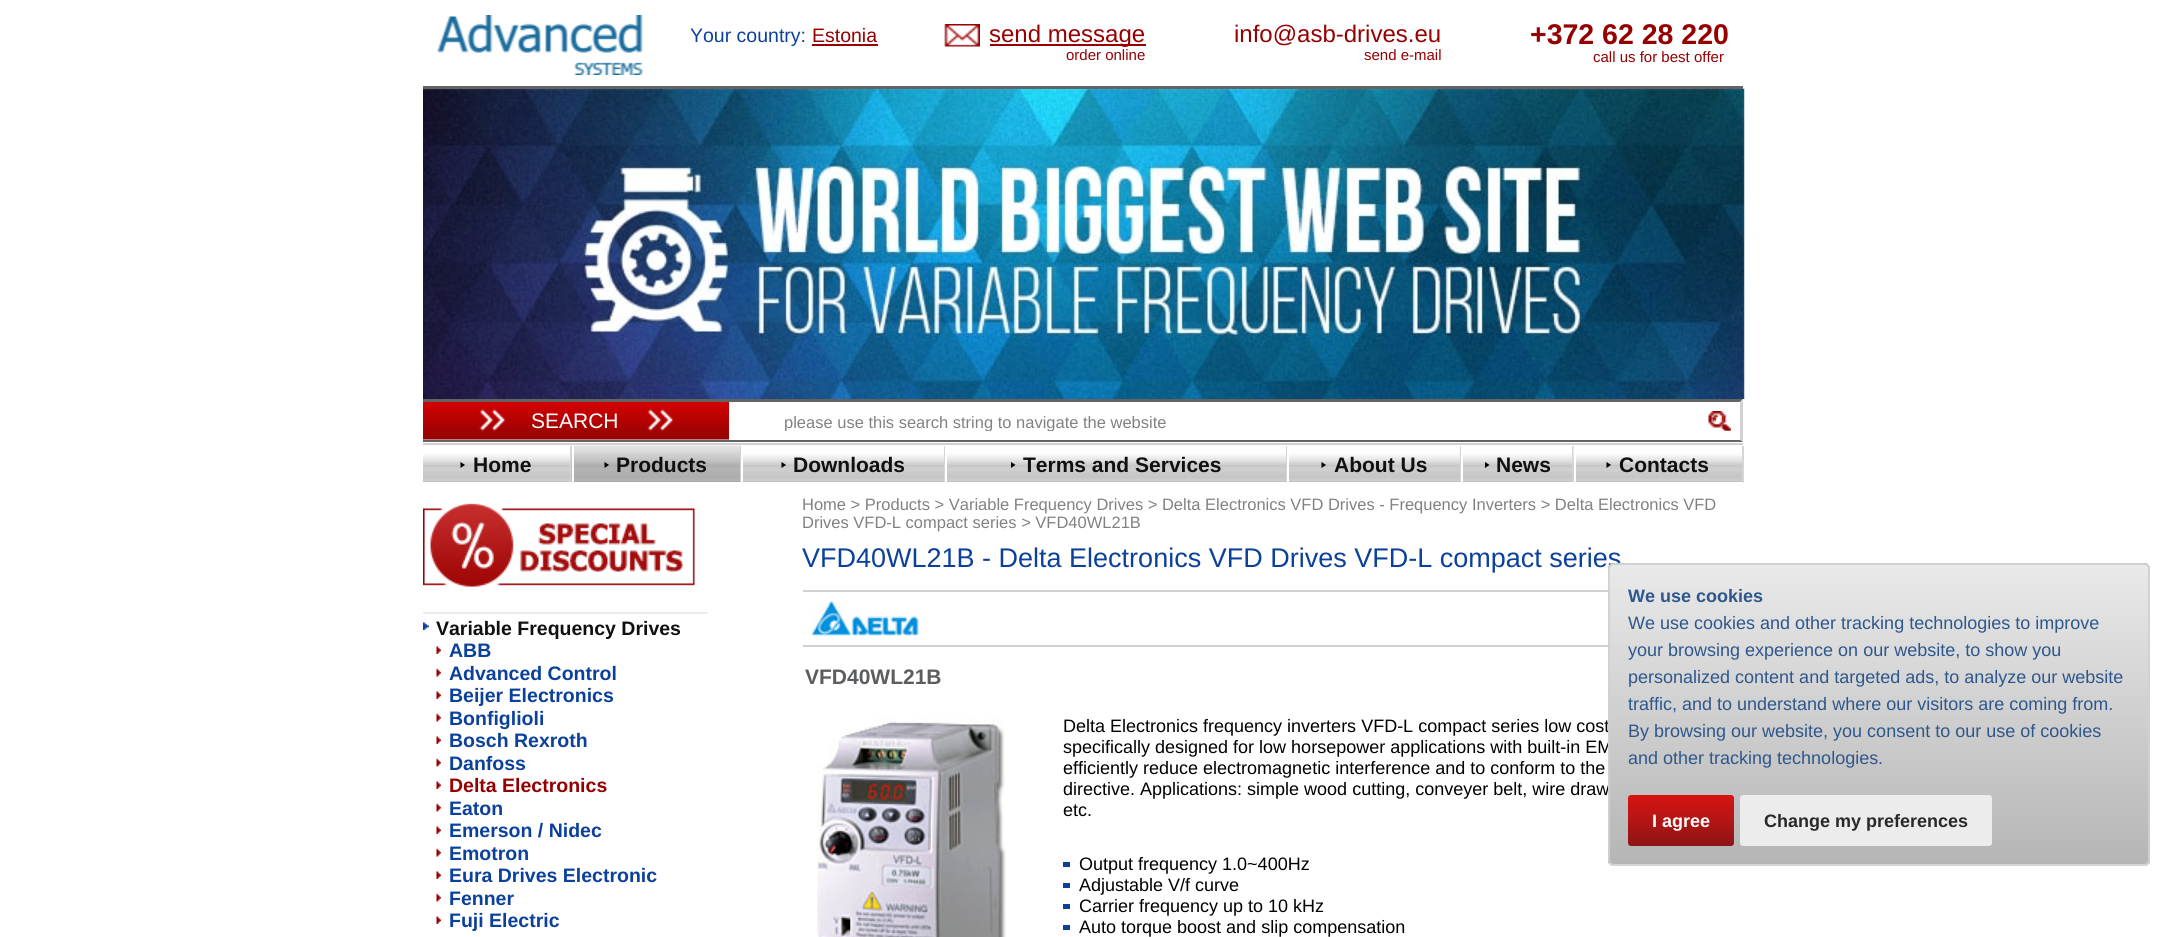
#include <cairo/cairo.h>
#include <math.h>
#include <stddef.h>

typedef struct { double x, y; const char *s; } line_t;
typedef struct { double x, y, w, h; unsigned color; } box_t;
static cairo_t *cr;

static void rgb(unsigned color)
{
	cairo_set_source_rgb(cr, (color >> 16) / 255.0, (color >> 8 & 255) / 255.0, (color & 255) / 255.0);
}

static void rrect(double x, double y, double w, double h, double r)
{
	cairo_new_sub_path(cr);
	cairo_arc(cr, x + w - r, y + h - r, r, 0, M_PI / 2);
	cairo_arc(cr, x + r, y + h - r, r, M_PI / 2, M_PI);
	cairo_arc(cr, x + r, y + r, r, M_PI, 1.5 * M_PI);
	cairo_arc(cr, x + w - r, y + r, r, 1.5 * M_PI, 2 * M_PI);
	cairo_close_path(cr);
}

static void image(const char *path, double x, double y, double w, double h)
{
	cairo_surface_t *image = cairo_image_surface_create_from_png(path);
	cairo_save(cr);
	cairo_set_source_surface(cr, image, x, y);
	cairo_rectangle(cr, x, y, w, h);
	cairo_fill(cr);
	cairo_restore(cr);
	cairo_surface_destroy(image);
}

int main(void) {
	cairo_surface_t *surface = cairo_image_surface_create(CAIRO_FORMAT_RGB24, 2164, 937);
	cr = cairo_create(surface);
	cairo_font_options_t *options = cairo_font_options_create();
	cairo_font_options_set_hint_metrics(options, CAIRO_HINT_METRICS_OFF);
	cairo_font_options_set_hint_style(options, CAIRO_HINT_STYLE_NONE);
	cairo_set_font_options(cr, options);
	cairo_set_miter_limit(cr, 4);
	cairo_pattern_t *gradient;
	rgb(0xffffff);
	cairo_paint(cr);
	image("img/3.png", 423, 88, 1322, 311);
	rgb(0x646464);
	cairo_rectangle(cr, 423, 86, 1320, 3);
	cairo_fill(cr);
	image("img/1.png", 437, 15, 206, 60);
	rgb(0x960000);
	cairo_rectangle(cr, 812, 44, 66, 2);
	cairo_fill(cr);
	image("img/2.png", 944, 24, 36, 23);
	rgb(0x960001);
	cairo_rectangle(cr, 990, 44, 156, 2);
	cairo_fill(cr);
	rgb(0x646464);
	cairo_new_path(cr);
	cairo_move_to(cr, 423, 399);
	cairo_line_to(cr, 1743, 399);
	cairo_line_to(cr, 1740, 402);
	cairo_line_to(cr, 423, 402);
	cairo_close_path(cr);
	cairo_fill(cr);
	rgb(0xd1d1d1);
	cairo_new_path(cr);
	cairo_move_to(cr, 1743, 399);
	cairo_line_to(cr, 1743, 442);
	cairo_line_to(cr, 1740, 440);
	cairo_line_to(cr, 1740, 402);
	cairo_close_path(cr);
	cairo_fill(cr);
	rgb(0x646464);
	cairo_new_path(cr);
	cairo_move_to(cr, 1743, 442);
	cairo_line_to(cr, 423, 442);
	cairo_line_to(cr, 423, 440);
	cairo_line_to(cr, 1740, 440);
	cairo_close_path(cr);
	cairo_fill(cr);
	image("img/4.png", 423, 402, 306, 38);
	image("img/5.png", 1710, 411, 21, 20);
	image("img/6.png", 1708, 411, 22, 20);
	rgb(0xd1d1d3);
	cairo_rectangle(cr, 423, 443, 1320, 2);
	cairo_fill(cr);
	image("img/7.png", 423, 454, 147, 28);
	rgb(0xd6d4d5);
	cairo_rectangle(cr, 570, 446, 2, 37);
	cairo_fill(cr);
	rgb(0x000000);
	cairo_new_path(cr);
	cairo_move_to(cr, 460.5, 468);
	cairo_line_to(cr, 460.5, 462);
	cairo_line_to(cr, 465, 465);
	cairo_close_path(cr);
	cairo_fill(cr);
	image("img/8.png", 571, 445, 170, 37);
	rgb(0xd3d2d2);
	cairo_rectangle(cr, 740, 446, 1, 37);
	cairo_fill(cr);
	rgb(0xfefefe);
	cairo_rectangle(cr, 572, 446, 2, 37);
	cairo_fill(cr);
	rgb(0x000000);
	cairo_new_path(cr);
	cairo_move_to(cr, 604.5, 468);
	cairo_line_to(cr, 604.5, 462);
	cairo_line_to(cr, 609, 465);
	cairo_close_path(cr);
	cairo_fill(cr);
	image("img/9.png", 743, 446, 201, 36);
	rgb(0xd6d4d5);
	cairo_rectangle(cr, 944, 446, 1, 37);
	cairo_fill(cr);
	rgb(0x000000);
	cairo_new_path(cr);
	cairo_move_to(cr, 781.5, 468);
	cairo_line_to(cr, 781.5, 462);
	cairo_line_to(cr, 786, 465);
	cairo_close_path(cr);
	cairo_fill(cr);
	image("img/10.png", 947, 446, 339, 36);
	rgb(0xd6d4d5);
	cairo_rectangle(cr, 1286, 446, 1, 37);
	cairo_fill(cr);
	rgb(0x000000);
	cairo_new_path(cr);
	cairo_move_to(cr, 1011, 468);
	cairo_line_to(cr, 1011, 462);
	cairo_line_to(cr, 1015.5, 465);
	cairo_close_path(cr);
	cairo_fill(cr);
	image("img/11.png", 1289, 446, 171, 36);
	rgb(0xd6d4d5);
	cairo_rectangle(cr, 1460, 446, 1, 37);
	cairo_fill(cr);
	rgb(0x000000);
	cairo_new_path(cr);
	cairo_move_to(cr, 1321.5, 468);
	cairo_line_to(cr, 1321.5, 462);
	cairo_line_to(cr, 1326, 465);
	cairo_close_path(cr);
	cairo_fill(cr);
	image("img/12.png", 1463, 446, 109, 36);
	rgb(0xd6d4d5);
	cairo_rectangle(cr, 1572, 446, 2, 37);
	cairo_fill(cr);
	rgb(0x000000);
	cairo_new_path(cr);
	cairo_move_to(cr, 1485, 468);
	cairo_line_to(cr, 1485, 462);
	cairo_line_to(cr, 1489.5, 465);
	cairo_close_path(cr);
	cairo_fill(cr);
	image("img/13.png", 1573, 446, 169, 36);
	rgb(0xd6d4d5);
	cairo_rectangle(cr, 1742, 446, 2, 37);
	cairo_fill(cr);
	rgb(0xffffff);
	cairo_rectangle(cr, 1574, 446, 2, 37);
	cairo_fill(cr);
	rgb(0x000000);
	cairo_new_path(cr);
	cairo_move_to(cr, 1606.5, 468);
	cairo_line_to(cr, 1606.5, 462);
	cairo_line_to(cr, 1611, 465);
	cairo_close_path(cr);
	cairo_fill(cr);
	rgb(0xffffff);
	cairo_rectangle(cr, 570, 482, 1173, 1);
	cairo_fill(cr);
	image("img/14.png", 423, 503, 272, 84);
	rgb(0xececec);
	cairo_rectangle(cr, 423, 612, 285, 2);
	cairo_fill(cr);
	image("img/15.png", 423, 622, 6, 8);
	image("img/16.png", 436, 646, 5, 8);
	image("img/17.png", 436, 668, 5, 9);
	image("img/16.png", 436, 691, 5, 8);
	image("img/17.png", 436, 713, 5, 9);
	image("img/16.png", 436, 736, 5, 8);
	image("img/17.png", 436, 758, 5, 9);
	image("img/16.png", 436, 781, 5, 8);
	image("img/17.png", 436, 803, 5, 9);
	image("img/16.png", 436, 826, 5, 8);
	image("img/17.png", 436, 848, 5, 9);
	image("img/16.png", 436, 871, 5, 8);
	image("img/17.png", 436, 893, 5, 9);
	image("img/16.png", 436, 916, 5, 8);
	rgb(0xd1d1d3);
	cairo_rectangle(cr, 803, 590, 940, 2);
	cairo_fill(cr);
	cairo_rectangle(cr, 803, 645, 940, 2);
	cairo_fill(cr);
	image("img/18.png", 811, 600, 109, 36);
	image("img/19.png", 817, 717, 189, 220);
	{
		static const box_t items[] = {
			{1063, 862, 7, 5, 0x0b419b},
			{1063, 883, 7, 5, 0x0b419b},
			{1063, 904, 7, 5, 0x0b419b},
			{1063, 925, 7, 5, 0x0b419b},
		};
		for (size_t i = 0; i < sizeof items / sizeof *items; i++) {
			rgb(items[i].color);
			cairo_rectangle(cr, items[i].x, items[i].y, items[i].w, items[i].h);
			cairo_fill(cr);
		}
	}
	cairo_select_font_face(cr, "Liberation Sans", CAIRO_FONT_SLANT_NORMAL, CAIRO_FONT_WEIGHT_NORMAL);
	cairo_set_font_size(cr, 19.5);
	cairo_move_to(cr, 690, 42);
	cairo_show_text(cr, "Your country:");
	rgb(0x960001);
	cairo_move_to(cr, 812, 42);
	cairo_show_text(cr, "Estonia");
	cairo_set_font_size(cr, 24);
	cairo_move_to(cr, 989, 42);
	cairo_show_text(cr, "send message");
	cairo_set_font_size(cr, 15);
	cairo_move_to(cr, 1066, 60);
	cairo_show_text(cr, "order online");
	cairo_set_font_size(cr, 24);
	cairo_move_to(cr, 1234, 42);
	cairo_show_text(cr, "info@asb-drives.eu");
	cairo_set_font_size(cr, 15);
	cairo_move_to(cr, 1364, 60);
	cairo_show_text(cr, "send e-mail");
	cairo_select_font_face(cr, "Liberation Sans", CAIRO_FONT_SLANT_NORMAL, CAIRO_FONT_WEIGHT_BOLD);
	cairo_set_font_size(cr, 28.5);
	cairo_move_to(cr, 1530, 44);
	cairo_show_text(cr, "+372 62 28 220");
	cairo_select_font_face(cr, "Liberation Sans", CAIRO_FONT_SLANT_NORMAL, CAIRO_FONT_WEIGHT_NORMAL);
	cairo_set_font_size(cr, 15);
	cairo_move_to(cr, 1593, 62);
	cairo_show_text(cr, "call us for best offer");
	cairo_set_font_size(cr, 21);
	rgb(0xffffff);
	cairo_move_to(cr, 531, 428);
	cairo_show_text(cr, "SEARCH");
	cairo_save(cr);
	cairo_rectangle(cr, 785, 413, 916, 18);
	cairo_clip(cr);
	cairo_set_font_size(cr, 16.5);
	rgb(0x818181);
	cairo_move_to(cr, 784, 428);
	cairo_show_text(cr, "please use this search string to navigate the website");
	cairo_restore(cr);
	cairo_select_font_face(cr, "Liberation Sans", CAIRO_FONT_SLANT_NORMAL, CAIRO_FONT_WEIGHT_BOLD);
	rgb(0x111010);
	{
		static const line_t items[] = {
			{473, 472, "Home"},
			{616, 472, "Products"},
			{793, 472, "Downloads"},
			{1023, 472, "Terms and Services"},
			{1334, 472, "About Us"},
			{1496, 472, "News"},
			{1619, 472, "Contacts"},
		};
		for (size_t i = 0; i < sizeof items / sizeof *items; i++) {
			cairo_move_to(cr, items[i].x, items[i].y);
			cairo_show_text(cr, items[i].s);
		}
	}
	cairo_set_font_size(cr, 19.5);
	cairo_move_to(cr, 436, 635);
	cairo_show_text(cr, "Variable Frequency Drives");
	rgb(0x0b419b);
	{
		static const line_t items[] = {
			{449, 657, "ABB"},
			{449, 680, "Advanced Control"},
			{449, 702, "Beijer Electronics"},
			{449, 725, "Bonfiglioli"},
			{449, 747, "Bosch Rexroth"},
			{449, 770, "Danfoss"},
		};
		for (size_t i = 0; i < sizeof items / sizeof *items; i++) {
			cairo_move_to(cr, items[i].x, items[i].y);
			cairo_show_text(cr, items[i].s);
		}
	}
	rgb(0x960001);
	cairo_move_to(cr, 449, 792);
	cairo_show_text(cr, "Delta Electronics");
	rgb(0x0b419b);
	{
		static const line_t items[] = {
			{449, 815, "Eaton"},
			{449, 837, "Emerson / Nidec"},
			{449, 860, "Emotron"},
			{449, 882, "Eura Drives Electronic"},
			{449, 905, "Fenner"},
			{449, 927, "Fuji Electric"},
		};
		for (size_t i = 0; i < sizeof items / sizeof *items; i++) {
			cairo_move_to(cr, items[i].x, items[i].y);
			cairo_show_text(cr, items[i].s);
		}
	}
	cairo_select_font_face(cr, "Liberation Sans", CAIRO_FONT_SLANT_NORMAL, CAIRO_FONT_WEIGHT_NORMAL);
	cairo_set_font_size(cr, 16.5);
	rgb(0x818181);
	cairo_move_to(cr, 802, 510);
	cairo_show_text(cr, "Home > Products > Variable Frequency Drives > Delta Electronics VFD Drives - Frequency Inverters > Delta Electronics VFD");
	cairo_move_to(cr, 802, 528);
	cairo_show_text(cr, "Drives VFD-L compact series > VFD40WL21B");
	cairo_set_font_size(cr, 27);
	rgb(0x0b419b);
	cairo_move_to(cr, 802, 567);
	cairo_show_text(cr, "VFD40WL21B - Delta Electronics VFD Drives VFD-L compact series");
	cairo_select_font_face(cr, "Liberation Sans", CAIRO_FONT_SLANT_NORMAL, CAIRO_FONT_WEIGHT_BOLD);
	cairo_set_font_size(cr, 21);
	rgb(0x5b5d5f);
	cairo_move_to(cr, 805, 684);
	cairo_show_text(cr, "VFD40WL21B");
	cairo_select_font_face(cr, "Liberation Sans", CAIRO_FONT_SLANT_NORMAL, CAIRO_FONT_WEIGHT_NORMAL);
	cairo_set_font_size(cr, 18);
	rgb(0x000000);
	{
		static const line_t items[] = {
			{1063, 732, "Delta Electronics frequency inverters VFD-L compact series low cost"},
			{1063, 753, "specifically designed for low horsepower applications with built-in EM"},
			{1063, 774, "efficiently reduce electromagnetic interference and to conform to the"},
			{1063, 795, "directive. Applications: simple wood cutting, conveyer belt, wire draw"},
			{1063, 816, "etc."},
			{1079, 870, "Output frequency 1.0~400Hz"},
			{1079, 891, "Adjustable V/f curve"},
			{1079, 912, "Carrier frequency up to 10 kHz"},
			{1079, 933, "Auto torque boost and slip compensation"},
		};
		for (size_t i = 0; i < sizeof items / sizeof *items; i++) {
			cairo_move_to(cr, items[i].x, items[i].y);
			cairo_show_text(cr, items[i].s);
		}
	}
	cairo_set_source_rgba(cr, 0.067, 0.067, 0.067, 0.9);
	rrect(1608, 563, 542, 303, 6);
	cairo_fill(cr);
	cairo_save(cr);
	rrect(1608, 563, 542, 303, 6);
	cairo_clip(cr);
	gradient = cairo_pattern_create_linear(1879, 564, 1879, 264);
	cairo_pattern_add_color_stop_rgba(gradient, 0, 0.773, 0.773, 0.773, 0.9);
	cairo_pattern_add_color_stop_rgba(gradient, 1, 1, 1, 1, 0.9);
	cairo_set_source(cr, gradient);
	cairo_pattern_destroy(gradient);
	cairo_rectangle(cr, 1608, 563, 542, 1);
	cairo_fill(cr);
	gradient = cairo_pattern_create_linear(1879, 864, 1879, 564);
	cairo_pattern_add_color_stop_rgba(gradient, 0, 0.773, 0.773, 0.773, 0.9);
	cairo_pattern_add_color_stop_rgba(gradient, 1, 1, 1, 1, 0.9);
	cairo_set_source(cr, gradient);
	cairo_pattern_destroy(gradient);
	cairo_rectangle(cr, 1608, 564, 542, 300);
	cairo_fill(cr);
	gradient = cairo_pattern_create_linear(1879, 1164, 1879, 864);
	cairo_pattern_add_color_stop_rgba(gradient, 0, 0.796, 0.796, 0.796, 1);
	cairo_pattern_add_color_stop_rgba(gradient, 1, 1, 1, 1, 1);
	cairo_set_source(cr, gradient);
	cairo_pattern_destroy(gradient);
	cairo_rectangle(cr, 1608, 864, 542, 2);
	cairo_fill(cr);
	cairo_restore(cr);
	rrect(1609, 564, 540, 301, 5);
	cairo_set_source_rgba(cr, 0.816, 0.816, 0.816, 0.9);
	cairo_stroke(cr);
	cairo_select_font_face(cr, "Liberation Sans", CAIRO_FONT_SLANT_NORMAL, CAIRO_FONT_WEIGHT_BOLD);
	rgb(0x2d578c);
	cairo_move_to(cr, 1628, 602);
	cairo_show_text(cr, "We use cookies");
	cairo_select_font_face(cr, "Liberation Sans", CAIRO_FONT_SLANT_NORMAL, CAIRO_FONT_WEIGHT_NORMAL);
	{
		static const line_t items[] = {
			{1628, 629, "We use cookies and other tracking technologies to improve"},
			{1628, 656, "your browsing experience on our website, to show you"},
			{1628, 683, "personalized content and targeted ads, to analyze our website"},
			{1628, 710, "traffic, and to understand where our visitors are coming from."},
			{1628, 737, "By browsing our website, you consent to our use of cookies"},
			{1628, 764, "and other tracking technologies"},
			{1878, 764, "."},
		};
		for (size_t i = 0; i < sizeof items / sizeof *items; i++) {
			cairo_move_to(cr, items[i].x, items[i].y);
			cairo_show_text(cr, items[i].s);
		}
	}
	gradient = cairo_pattern_create_linear(1681, 846, 1681, 795);
	cairo_pattern_add_color_stop_rgba(gradient, 0, 0.541, 0.012, 0.012, 0.9);
	cairo_pattern_add_color_stop_rgba(gradient, 1, 0.859, 0.004, 0.004, 0.9);
	cairo_set_source(cr, gradient);
	cairo_pattern_destroy(gradient);
	rrect(1628, 795, 106, 51, 3);
	cairo_fill(cr);
	cairo_select_font_face(cr, "Liberation Sans", CAIRO_FONT_SLANT_NORMAL, CAIRO_FONT_WEIGHT_BOLD);
	rgb(0xffffff);
	cairo_move_to(cr, 1652, 827);
	cairo_show_text(cr, "I agree");
	rgb(0xececec);
	rrect(1740, 795, 252, 51, 3);
	cairo_fill(cr);
	rgb(0x292929);
	cairo_move_to(cr, 1764, 827);
	cairo_show_text(cr, "Change my preferences");
	cairo_surface_write_to_png(surface, "page.png");
	cairo_font_options_destroy(options);
	cairo_destroy(cr);
	cairo_surface_destroy(surface);
	return 0;
}
